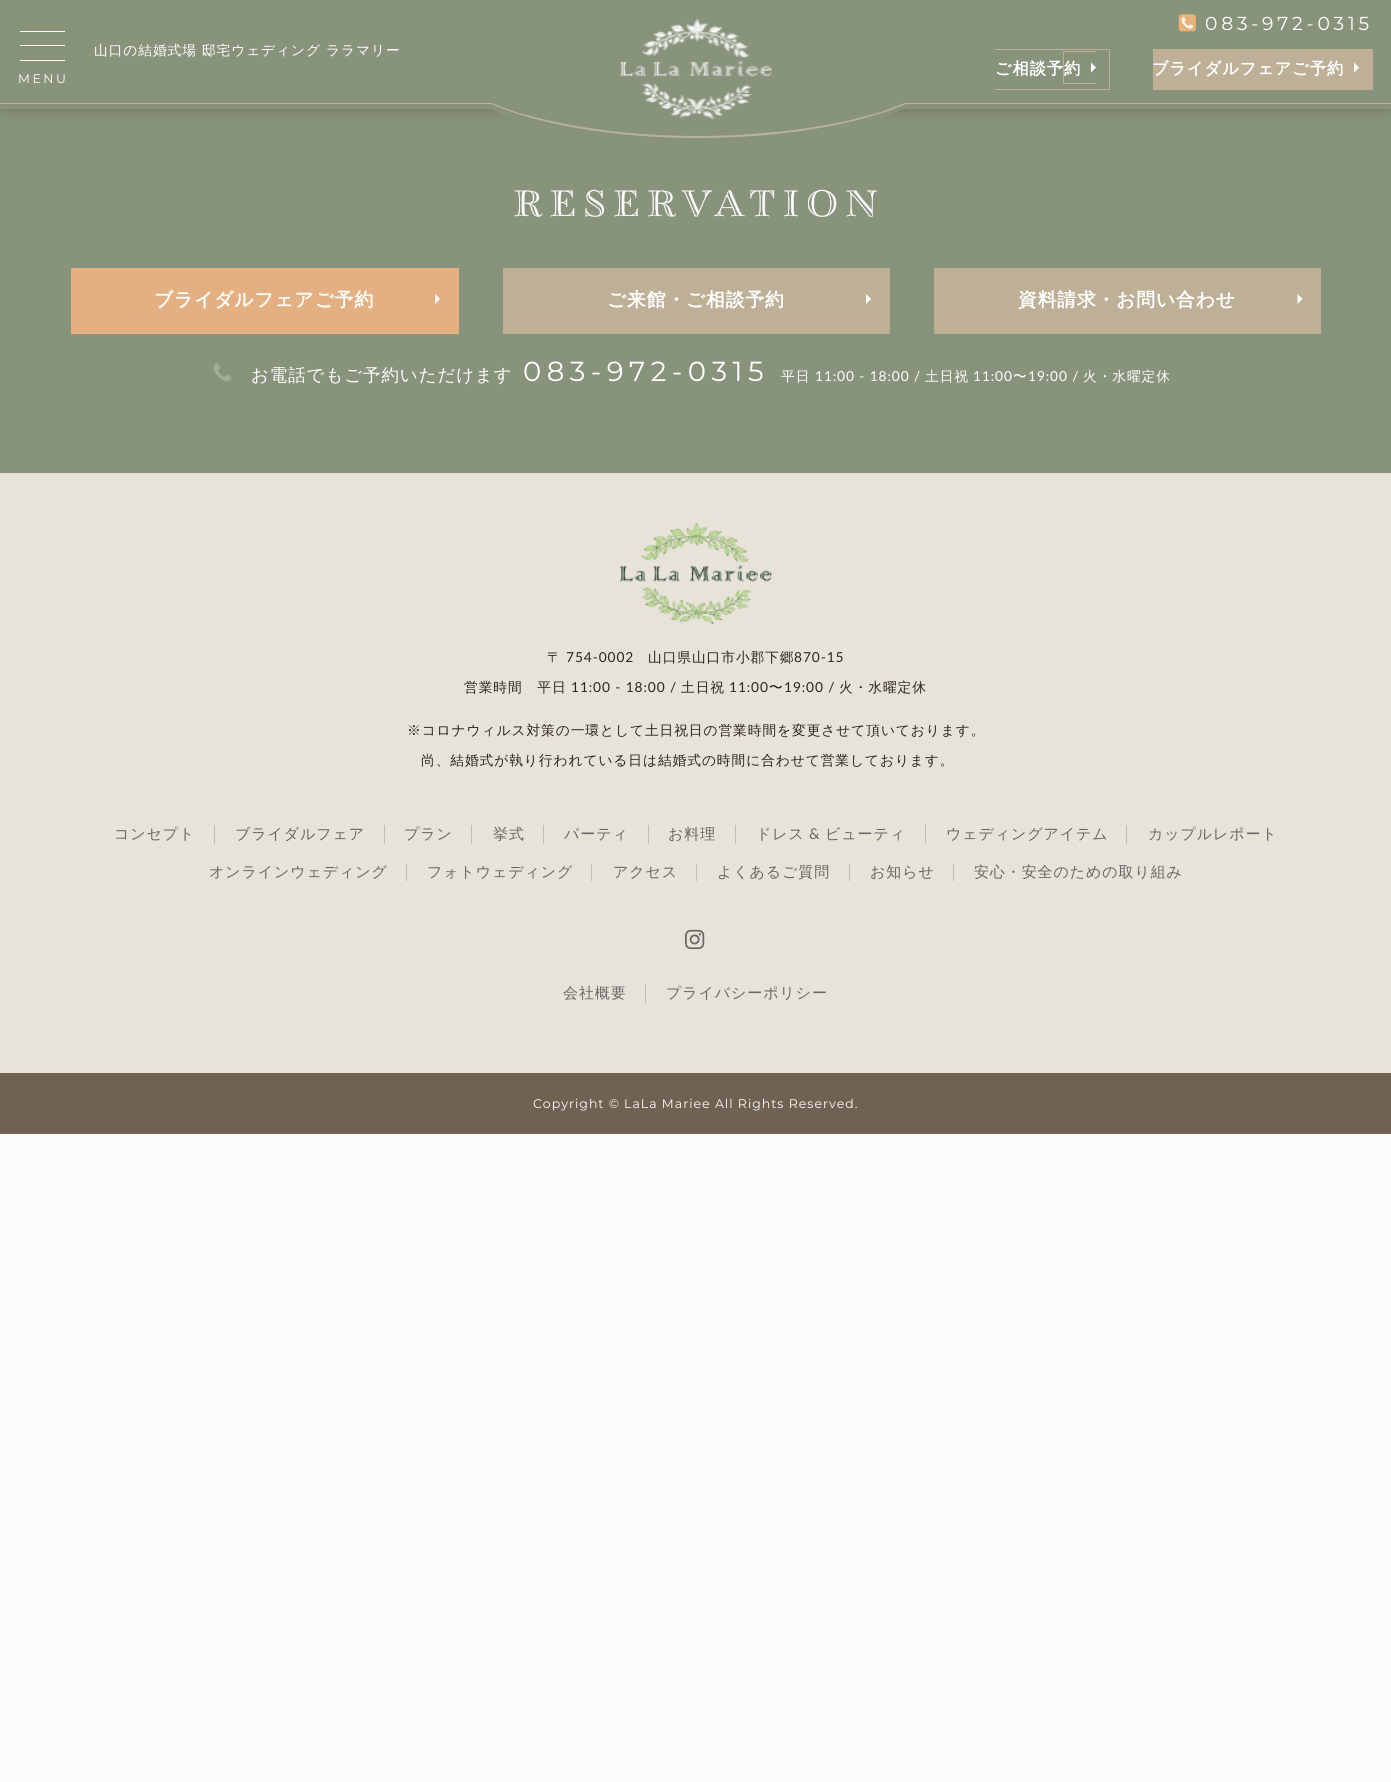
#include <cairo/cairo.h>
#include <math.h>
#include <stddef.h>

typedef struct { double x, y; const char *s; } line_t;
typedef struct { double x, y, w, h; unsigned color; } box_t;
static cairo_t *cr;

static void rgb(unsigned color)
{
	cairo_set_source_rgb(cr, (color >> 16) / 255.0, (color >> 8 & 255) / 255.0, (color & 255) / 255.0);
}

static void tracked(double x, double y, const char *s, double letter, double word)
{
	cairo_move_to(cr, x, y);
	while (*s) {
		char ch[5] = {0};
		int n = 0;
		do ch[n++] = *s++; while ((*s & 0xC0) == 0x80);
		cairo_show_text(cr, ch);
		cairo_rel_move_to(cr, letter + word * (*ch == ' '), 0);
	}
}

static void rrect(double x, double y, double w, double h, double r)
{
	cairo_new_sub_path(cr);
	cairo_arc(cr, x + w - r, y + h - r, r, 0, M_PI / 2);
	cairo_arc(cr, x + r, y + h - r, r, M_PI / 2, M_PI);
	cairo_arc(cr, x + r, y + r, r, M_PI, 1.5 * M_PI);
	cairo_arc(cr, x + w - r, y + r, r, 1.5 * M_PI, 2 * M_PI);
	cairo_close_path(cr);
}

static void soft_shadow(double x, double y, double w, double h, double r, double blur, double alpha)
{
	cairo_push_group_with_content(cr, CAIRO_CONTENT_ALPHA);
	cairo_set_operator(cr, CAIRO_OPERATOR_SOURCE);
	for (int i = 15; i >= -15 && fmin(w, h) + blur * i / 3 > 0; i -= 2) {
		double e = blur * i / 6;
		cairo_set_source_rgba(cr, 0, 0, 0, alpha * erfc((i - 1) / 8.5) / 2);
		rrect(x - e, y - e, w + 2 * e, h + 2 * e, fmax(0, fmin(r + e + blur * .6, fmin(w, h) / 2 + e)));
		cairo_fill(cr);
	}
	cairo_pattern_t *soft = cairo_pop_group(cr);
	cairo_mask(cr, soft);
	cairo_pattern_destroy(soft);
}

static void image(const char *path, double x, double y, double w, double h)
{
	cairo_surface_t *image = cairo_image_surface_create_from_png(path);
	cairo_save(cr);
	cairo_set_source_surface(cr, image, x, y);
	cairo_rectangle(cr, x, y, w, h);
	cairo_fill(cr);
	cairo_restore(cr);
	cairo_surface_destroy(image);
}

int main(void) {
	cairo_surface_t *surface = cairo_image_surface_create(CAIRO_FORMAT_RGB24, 1391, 1782);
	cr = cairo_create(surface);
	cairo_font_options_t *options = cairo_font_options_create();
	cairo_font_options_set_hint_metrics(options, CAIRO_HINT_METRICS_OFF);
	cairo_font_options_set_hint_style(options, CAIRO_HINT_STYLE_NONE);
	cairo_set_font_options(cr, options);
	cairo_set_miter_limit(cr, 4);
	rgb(0xfcfbf9);
	cairo_paint(cr);
	rgb(0x88937c);
	cairo_rectangle(cr, 0, 109, 1391, 364);
	cairo_fill(cr);
	rgb(0x000000);
	soft_shadow(8, 8, 1376, 93, 0, 10, 0.6);
	rgb(0x88937c);
	cairo_rectangle(cr, 0, 0, 1391, 109);
	cairo_fill(cr);
	rgb(0xbeb097);
	cairo_rectangle(cr, 0, 103, 1391, 1);
	cairo_fill(cr);
	cairo_save(cr);
	cairo_rectangle(cr, 481, 103, 432, 40);
	cairo_clip(cr);
	rgb(0x88937c);
	cairo_new_path(cr);
	cairo_move_to(cr, 481, 102);
	cairo_curve_to(cr, 509, 126, 601, 143, 697, 143);
	cairo_curve_to(cr, 797, 143, 881, 127, 912, 102);
	cairo_close_path(cr);
	cairo_fill(cr);
	cairo_restore(cr);
	rgb(0xbab1a5);
	cairo_new_path(cr);
	cairo_move_to(cr, 698, 138);
	cairo_curve_to(cr, 784, 138, 859, 124, 906, 104);
	cairo_line_to(cr, 912, 104);
	cairo_line_to(cr, 912, 103);
	cairo_line_to(cr, 905, 103);
	cairo_line_to(cr, 881, 112);
	cairo_curve_to(cr, 870, 115, 858, 118, 847, 121);
	cairo_curve_to(cr, 800, 131, 747, 136, 698, 136);
	cairo_curve_to(cr, 651, 136, 602, 132, 556, 122);
	cairo_curve_to(cr, 542, 119, 529, 116, 516, 112);
	cairo_line_to(cr, 491, 103);
	cairo_line_to(cr, 481, 103);
	cairo_line_to(cr, 481, 104);
	cairo_line_to(cr, 491, 104);
	cairo_curve_to(cr, 537, 124, 613, 138, 698, 138);
	cairo_close_path(cr);
	cairo_fill(cr);
	image("img/1.png", 620, 18, 153, 102);
	rgb(0xffffff);
	cairo_rectangle(cr, 1181, 15, 14, 14);
	cairo_fill(cr);
	image("img/2.png", 1178, 14, 18, 18);
	{
		static const box_t items[] = {
			{1063, 51, 33, 1, 0xbeb097},
			{1063, 83, 33, 1, 0xbeb097},
			{1063, 51, 1, 33, 0xbeb097},
			{995, 49, 115, 1, 0xbeb097},
			{1109, 49, 1, 41, 0xbeb097},
			{995, 89, 115, 1, 0xbeb097},
		};
		for (size_t i = 0; i < sizeof items / sizeof *items; i++) {
			rgb(items[i].color);
			cairo_rectangle(cr, items[i].x, items[i].y, items[i].w, items[i].h);
			cairo_fill(cr);
		}
	}
	rgb(0xffffff);
	cairo_new_path(cr);
	cairo_move_to(cr, 1091, 72.5);
	cairo_line_to(cr, 1091, 62.5);
	cairo_line_to(cr, 1096, 67.5);
	cairo_close_path(cr);
	cairo_fill(cr);
	rgb(0xbeb097);
	cairo_rectangle(cr, 1153, 49, 220, 41);
	cairo_fill(cr);
	rgb(0xffffff);
	cairo_new_path(cr);
	cairo_move_to(cr, 1354, 72.5);
	cairo_line_to(cr, 1354, 62.5);
	cairo_line_to(cr, 1359, 67.5);
	cairo_close_path(cr);
	cairo_fill(cr);
	{
		static const box_t items[] = {
			{20, 31, 45, 1, 0xffffff},
			{20, 45, 45, 1, 0xffffff},
			{20, 60, 45, 1, 0xffffff},
		};
		for (size_t i = 0; i < sizeof items / sizeof *items; i++) {
			rgb(items[i].color);
			cairo_rectangle(cr, items[i].x, items[i].y, items[i].w, items[i].h);
			cairo_fill(cr);
		}
	}
	image("img/3.png", 514, 189, 364, 28);
	rgb(0xe5b081);
	cairo_rectangle(cr, 71, 268, 388, 66);
	cairo_fill(cr);
	rgb(0xffffff);
	cairo_new_path(cr);
	cairo_move_to(cr, 435, 304);
	cairo_line_to(cr, 435, 294);
	cairo_line_to(cr, 440, 299);
	cairo_close_path(cr);
	cairo_fill(cr);
	rgb(0xbeb097);
	cairo_rectangle(cr, 503, 268, 387, 66);
	cairo_fill(cr);
	rgb(0xffffff);
	cairo_new_path(cr);
	cairo_move_to(cr, 866, 304);
	cairo_line_to(cr, 866, 294);
	cairo_line_to(cr, 871, 299);
	cairo_close_path(cr);
	cairo_fill(cr);
	rgb(0xbeb097);
	cairo_rectangle(cr, 934, 268, 387, 66);
	cairo_fill(cr);
	rgb(0xffffff);
	cairo_new_path(cr);
	cairo_move_to(cr, 1297.5, 304);
	cairo_line_to(cr, 1297.5, 294);
	cairo_line_to(cr, 1302.5, 299);
	cairo_close_path(cr);
	cairo_fill(cr);
	image("img/4.png", 213, 363, 19, 19);
	rgb(0xe8e3d9);
	cairo_rectangle(cr, 0, 473, 1391, 600);
	cairo_fill(cr);
	image("img/5.png", 620, 522, 153, 102);
	{
		static const box_t items[] = {
			{214, 825, 1, 19, 0xbbbbbb},
			{384, 825, 1, 19, 0xbbbbbb},
			{471, 825, 1, 19, 0xbbbbbb},
			{543, 825, 1, 19, 0xbbbbbb},
			{648, 825, 1, 19, 0xbbbbbb},
			{735, 825, 1, 19, 0xbbbbbb},
			{925, 825, 1, 19, 0xbbbbbb},
			{1126, 825, 1, 19, 0xbbbbbb},
			{406, 864, 1, 17, 0xbbbbbb},
			{591, 864, 1, 17, 0xbbbbbb},
			{696, 864, 1, 17, 0xbbbbbb},
			{849, 864, 1, 17, 0xbbbbbb},
			{953, 864, 1, 17, 0xbbbbbb},
		};
		for (size_t i = 0; i < sizeof items / sizeof *items; i++) {
			rgb(items[i].color);
			cairo_rectangle(cr, items[i].x, items[i].y, items[i].w, items[i].h);
			cairo_fill(cr);
		}
	}
	image("img/6.png", 685, 929, 20, 21);
	cairo_rectangle(cr, 645, 985, 1, 18);
	cairo_fill(cr);
	rgb(0x6f6252);
	cairo_rectangle(cr, 0, 1073, 1391, 61);
	cairo_fill(cr);
	cairo_select_font_face(cr, "WenQuanYi Zen Hei Medium", CAIRO_FONT_SLANT_NORMAL, CAIRO_FONT_WEIGHT_NORMAL);
	cairo_set_font_size(cr, 13.75);
	rgb(0xffffff);
	tracked(94, 55, "山口の結婚式場 邸宅ウェディング ララマリー", 0.9, 0);
	cairo_select_font_face(cr, "Montserrat", CAIRO_FONT_SLANT_NORMAL, CAIRO_FONT_WEIGHT_NORMAL);
	cairo_set_font_size(cr, 18.75);
	tracked(1205, 30, "083-972-0315", 3.75, 0);
	cairo_select_font_face(cr, "WenQuanYi Zen Hei", CAIRO_FONT_SLANT_NORMAL, CAIRO_FONT_WEIGHT_BOLD);
	cairo_set_font_size(cr, 16.25);
	tracked(995, 74, "ご相談予約", 0.9, 0);
	tracked(1152, 74, "ブライダルフェアご予約", 0.9, 0);
	cairo_select_font_face(cr, "Montserrat", CAIRO_FONT_SLANT_NORMAL, CAIRO_FONT_WEIGHT_NORMAL);
	cairo_set_font_size(cr, 12.5);
	tracked(18, 83, "MENU", 2.5, 0);
	cairo_select_font_face(cr, "WenQuanYi Zen Hei", CAIRO_FONT_SLANT_NORMAL, CAIRO_FONT_WEIGHT_BOLD);
	cairo_set_font_size(cr, 18.75);
	{
		static const line_t items[] = {
			{154, 306, "ブライダルフェアご予約"},
			{607, 306, "ご来館・ご相談予約"},
			{1018, 306, "資料請求・お問い合わせ"},
		};
		for (size_t i = 0; i < sizeof items / sizeof *items; i++) {
			tracked(items[i].x, items[i].y, items[i].s, 0.9, 0);
		}
	}
	cairo_select_font_face(cr, "WenQuanYi Zen Hei Medium", CAIRO_FONT_SLANT_NORMAL, CAIRO_FONT_WEIGHT_NORMAL);
	cairo_set_font_size(cr, 17.5);
	tracked(251, 381, "お電話でもご予約いただけます", 0.9, 0);
	cairo_select_font_face(cr, "Montserrat", CAIRO_FONT_SLANT_NORMAL, CAIRO_FONT_WEIGHT_NORMAL);
	cairo_set_font_size(cr, 27.5);
	tracked(523, 381, "083-972-0315", 5.5, 0);
	cairo_select_font_face(cr, "WenQuanYi Zen Hei Medium", CAIRO_FONT_SLANT_NORMAL, CAIRO_FONT_WEIGHT_NORMAL);
	cairo_set_font_size(cr, 13.75);
	tracked(781, 381, "平日", 0.9, 0);
	cairo_select_font_face(cr, "Lato", CAIRO_FONT_SLANT_NORMAL, CAIRO_FONT_WEIGHT_NORMAL);
	tracked(815, 381, "11:00 - 18:00 /", 0.9, 0);
	cairo_select_font_face(cr, "WenQuanYi Zen Hei Medium", CAIRO_FONT_SLANT_NORMAL, CAIRO_FONT_WEIGHT_NORMAL);
	tracked(925, 381, "土日祝", 0.9, 0);
	cairo_select_font_face(cr, "Lato", CAIRO_FONT_SLANT_NORMAL, CAIRO_FONT_WEIGHT_NORMAL);
	tracked(973, 381, "11:00", 0.9, 0);
	cairo_select_font_face(cr, "WenQuanYi Zen Hei Medium", CAIRO_FONT_SLANT_NORMAL, CAIRO_FONT_WEIGHT_NORMAL);
	tracked(1013, 381, "〜", 0.9, 0);
	cairo_select_font_face(cr, "Lato", CAIRO_FONT_SLANT_NORMAL, CAIRO_FONT_WEIGHT_NORMAL);
	tracked(1028, 381, "19:00 /", 0.9, 0);
	cairo_select_font_face(cr, "WenQuanYi Zen Hei Medium", CAIRO_FONT_SLANT_NORMAL, CAIRO_FONT_WEIGHT_NORMAL);
	tracked(1083, 381, "火・水曜定休", 0.9, 0);
	rgb(0x2c241f);
	tracked(547, 662, "〒", 0.9, 0);
	cairo_select_font_face(cr, "Lato", CAIRO_FONT_SLANT_NORMAL, CAIRO_FONT_WEIGHT_NORMAL);
	tracked(566, 662, "754-0002", 0.9, 0);
	cairo_select_font_face(cr, "WenQuanYi Zen Hei Medium", CAIRO_FONT_SLANT_NORMAL, CAIRO_FONT_WEIGHT_NORMAL);
	tracked(648, 662, "山口県山口市小郡下郷", 0.9, 0);
	cairo_select_font_face(cr, "Lato", CAIRO_FONT_SLANT_NORMAL, CAIRO_FONT_WEIGHT_NORMAL);
	tracked(794, 662, "870-15", 0.9, 0);
	cairo_select_font_face(cr, "WenQuanYi Zen Hei Medium", CAIRO_FONT_SLANT_NORMAL, CAIRO_FONT_WEIGHT_NORMAL);
	tracked(464, 692, "営業時間　平日", 0.9, 0);
	cairo_select_font_face(cr, "Lato", CAIRO_FONT_SLANT_NORMAL, CAIRO_FONT_WEIGHT_NORMAL);
	tracked(571, 692, "11:00 - 18:00 /", 0.9, 0);
	cairo_select_font_face(cr, "WenQuanYi Zen Hei Medium", CAIRO_FONT_SLANT_NORMAL, CAIRO_FONT_WEIGHT_NORMAL);
	tracked(681, 692, "土日祝", 0.9, 0);
	cairo_select_font_face(cr, "Lato", CAIRO_FONT_SLANT_NORMAL, CAIRO_FONT_WEIGHT_NORMAL);
	tracked(729, 692, "11:00", 0.9, 0);
	cairo_select_font_face(cr, "WenQuanYi Zen Hei Medium", CAIRO_FONT_SLANT_NORMAL, CAIRO_FONT_WEIGHT_NORMAL);
	tracked(769, 692, "〜", 0.9, 0);
	cairo_select_font_face(cr, "Lato", CAIRO_FONT_SLANT_NORMAL, CAIRO_FONT_WEIGHT_NORMAL);
	tracked(784, 692, "19:00 /", 0.9, 0);
	cairo_select_font_face(cr, "WenQuanYi Zen Hei Medium", CAIRO_FONT_SLANT_NORMAL, CAIRO_FONT_WEIGHT_NORMAL);
	{
		static const line_t items[] = {
			{839, 692, "火・水曜定休"},
			{407, 735, "※コロナウィルス対策の一環として土日祝日の営業時間を変更させて頂いております。"},
			{421, 765, "尚、結婚式が執り行われている日は結婚式の時間に合わせて営業しております。"},
		};
		for (size_t i = 0; i < sizeof items / sizeof *items; i++) {
			tracked(items[i].x, items[i].y, items[i].s, 0.9, 0);
		}
	}
	cairo_set_font_size(cr, 15);
	rgb(0x666666);
	{
		static const line_t items[] = {
			{114, 839, "コンセプト"},
			{235, 839, "ブライダルフェア"},
			{404, 839, "プラン"},
			{493, 839, "挙式"},
			{564, 839, "パーティ"},
			{668, 839, "お料理"},
			{756, 839, "ドレス"},
		};
		for (size_t i = 0; i < sizeof items / sizeof *items; i++) {
			tracked(items[i].x, items[i].y, items[i].s, 0.9, 0);
		}
	}
	cairo_select_font_face(cr, "Lato", CAIRO_FONT_SLANT_NORMAL, CAIRO_FONT_WEIGHT_NORMAL);
	tracked(809, 839, "&", 0.9, 0);
	cairo_select_font_face(cr, "WenQuanYi Zen Hei Medium", CAIRO_FONT_SLANT_NORMAL, CAIRO_FONT_WEIGHT_NORMAL);
	{
		static const line_t items[] = {
			{825, 839, "ビューティ"},
			{946, 839, "ウェディングアイテム"},
			{1148, 839, "カップルレポート"},
			{209, 877, "オンラインウェディング"},
			{427, 877, "フォトウェディング"},
			{613, 877, "アクセス"},
			{717, 877, "よくあるご質問"},
			{870, 877, "お知らせ"},
			{974, 877, "安心・安全のための取り組み"},
			{563, 998, "会社概要"},
			{666, 998, "プライバシーポリシー"},
		};
		for (size_t i = 0; i < sizeof items / sizeof *items; i++) {
			tracked(items[i].x, items[i].y, items[i].s, 0.9, 0);
		}
	}
	cairo_select_font_face(cr, "Montserrat", CAIRO_FONT_SLANT_NORMAL, CAIRO_FONT_WEIGHT_NORMAL);
	cairo_set_font_size(cr, 12.5);
	rgb(0xffffff);
	tracked(533, 1108, "Copyright © LaLa Mariee All Rights Reserved.", 1, 0);
	cairo_surface_write_to_png(surface, "page.png");
	cairo_font_options_destroy(options);
	cairo_destroy(cr);
	cairo_surface_destroy(surface);
	return 0;
}
